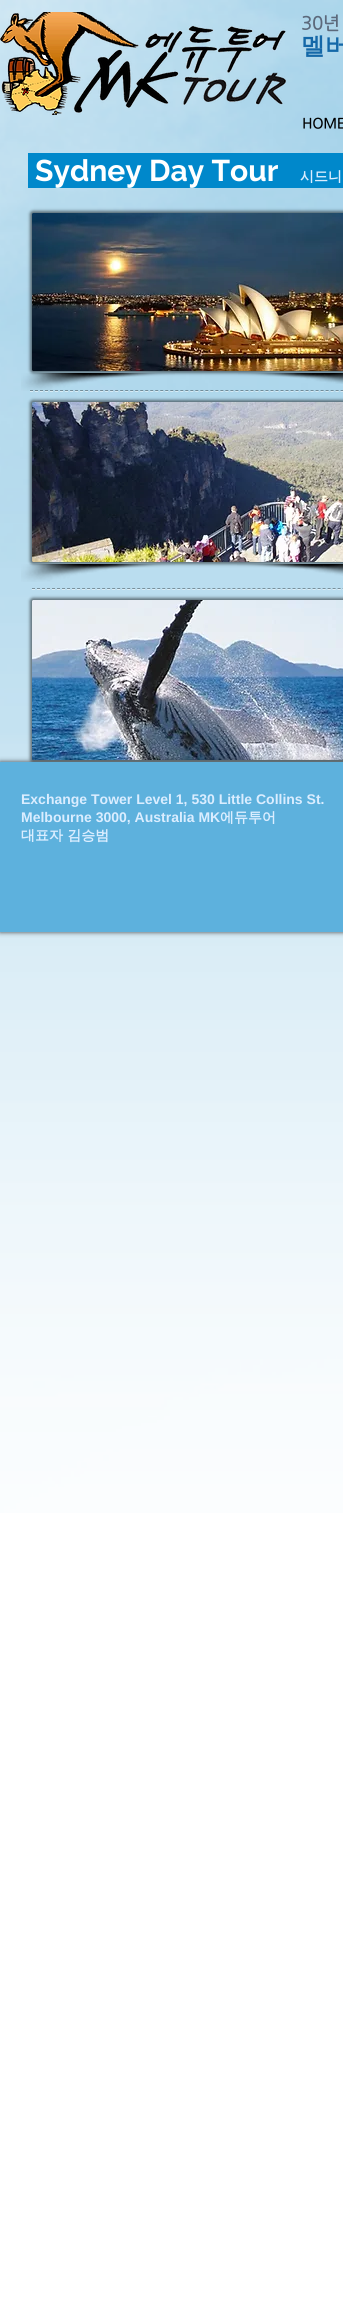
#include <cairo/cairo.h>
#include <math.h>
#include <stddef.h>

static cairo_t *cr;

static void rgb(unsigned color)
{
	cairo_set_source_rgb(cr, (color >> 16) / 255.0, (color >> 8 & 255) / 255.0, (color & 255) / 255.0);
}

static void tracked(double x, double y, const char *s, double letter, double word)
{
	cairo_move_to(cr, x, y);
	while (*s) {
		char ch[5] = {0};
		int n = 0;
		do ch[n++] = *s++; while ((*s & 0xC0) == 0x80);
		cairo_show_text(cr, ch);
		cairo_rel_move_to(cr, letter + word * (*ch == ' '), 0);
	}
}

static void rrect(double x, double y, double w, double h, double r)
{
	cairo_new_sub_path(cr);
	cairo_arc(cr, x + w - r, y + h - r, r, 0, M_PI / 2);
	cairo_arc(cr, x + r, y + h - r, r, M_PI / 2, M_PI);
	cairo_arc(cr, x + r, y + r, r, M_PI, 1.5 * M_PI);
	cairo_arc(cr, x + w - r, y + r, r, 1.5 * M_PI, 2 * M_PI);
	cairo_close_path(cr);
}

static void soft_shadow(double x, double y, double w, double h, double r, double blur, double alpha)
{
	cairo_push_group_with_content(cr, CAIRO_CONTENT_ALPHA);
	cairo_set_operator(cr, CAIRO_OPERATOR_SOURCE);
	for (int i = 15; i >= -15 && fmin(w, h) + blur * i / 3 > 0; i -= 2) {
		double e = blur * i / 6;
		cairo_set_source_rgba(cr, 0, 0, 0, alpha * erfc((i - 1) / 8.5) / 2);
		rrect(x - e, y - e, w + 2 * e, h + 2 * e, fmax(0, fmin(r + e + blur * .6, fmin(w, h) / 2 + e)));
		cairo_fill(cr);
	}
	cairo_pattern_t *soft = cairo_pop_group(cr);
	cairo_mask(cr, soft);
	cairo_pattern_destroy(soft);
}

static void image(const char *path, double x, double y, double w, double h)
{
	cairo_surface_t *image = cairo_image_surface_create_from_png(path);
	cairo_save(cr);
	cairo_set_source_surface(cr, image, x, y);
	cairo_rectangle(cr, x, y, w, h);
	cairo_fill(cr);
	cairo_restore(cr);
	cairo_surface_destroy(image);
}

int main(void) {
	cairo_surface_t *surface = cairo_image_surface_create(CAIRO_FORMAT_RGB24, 343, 2308);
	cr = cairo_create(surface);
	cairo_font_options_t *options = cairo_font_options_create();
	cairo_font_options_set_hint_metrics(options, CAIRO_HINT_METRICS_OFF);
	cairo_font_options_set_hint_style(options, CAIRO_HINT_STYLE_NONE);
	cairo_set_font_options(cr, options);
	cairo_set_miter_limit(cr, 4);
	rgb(0xffffff);
	cairo_paint(cr);
	image("img/1.png", 0, 0, 343, 1513);
	image("img/2.png", 0, 12, 286, 103);
	rgb(0x0088cb);
	cairo_rectangle(cr, 28, 153, 315, 35);
	cairo_fill(cr);
	rgb(0x000000);
	soft_shadow(30, 211, 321, 162, 3, 1.5, 0.5);
	image("img/3.png", 32, 213, 311, 158);
	image("img/4.png", 21, 373, 154, 18);
	image("img/5.png", 238, 373, 105, 11);
	cairo_new_path(cr);
	cairo_move_to(cr, 30, 390.5);
	cairo_line_to(cr, 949, 390.5);
	cairo_set_source_rgba(cr, 0, 0, 0, 0.35);
	cairo_set_line_width(cr, 1);
	cairo_set_dash(cr, (double[]){3, 2.01}, 2, 0);
	cairo_stroke(cr);
	cairo_new_path(cr);
	cairo_move_to(cr, 30, 391.5);
	cairo_line_to(cr, 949, 391.5);
	cairo_set_source_rgba(cr, 1, 1, 1, 0.5);
	cairo_stroke(cr);
	rgb(0x000000);
	soft_shadow(30, 400, 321, 164, 3, 1.5, 0.5);
	image("img/6.png", 32, 402, 311, 160);
	image("img/7.png", 21, 564, 154, 18);
	image("img/8.png", 237, 564, 106, 12);
	cairo_new_path(cr);
	cairo_move_to(cr, 32, 588.5);
	cairo_line_to(cr, 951, 588.5);
	rgb(0x79909b);
	cairo_stroke(cr);
	cairo_new_path(cr);
	cairo_move_to(cr, 32, 589.5);
	cairo_line_to(cr, 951, 589.5);
	rgb(0xddeef7);
	cairo_stroke(cr);
	rgb(0x000000);
	soft_shadow(30, 598, 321, 164, 3, 1.5, 0.5);
	image("img/9.png", 32, 600, 311, 160);
	soft_shadow(0, 762, 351, 170, 0, 2.5, 0.7);
	rgb(0x5db1dd);
	cairo_rectangle(cr, 0, 762, 343, 170);
	cairo_fill(cr);
	cairo_select_font_face(cr, "NanumGothic", CAIRO_FONT_SLANT_NORMAL, CAIRO_FONT_WEIGHT_BOLD);
	cairo_set_font_size(cr, 18);
	rgb(0x5c697b);
	cairo_move_to(cr, 301, 29);
	cairo_show_text(cr, "30년");
	cairo_select_font_face(cr, "WenQuanYi Zen Hei", CAIRO_FONT_SLANT_NORMAL, CAIRO_FONT_WEIGHT_BOLD);
	cairo_set_font_size(cr, 24);
	rgb(0x1468a8);
	cairo_move_to(cr, 301, 54);
	cairo_show_text(cr, "멜버");
	cairo_select_font_face(cr, "NanumGothic", CAIRO_FONT_SLANT_NORMAL, CAIRO_FONT_WEIGHT_BOLD);
	cairo_set_font_size(cr, 14);
	rgb(0x000000);
	cairo_move_to(cr, 302, 128);
	cairo_show_text(cr, "HOME");
	cairo_select_font_face(cr, "Raleway", CAIRO_FONT_SLANT_NORMAL, CAIRO_FONT_WEIGHT_BOLD);
	cairo_set_font_size(cr, 30);
	rgb(0xffffff);
	cairo_move_to(cr, 35, 181);
	cairo_show_text(cr, "Sydney Day Tour");
	cairo_select_font_face(cr, "WenQuanYi Zen Hei", CAIRO_FONT_SLANT_NORMAL, CAIRO_FONT_WEIGHT_BOLD);
	cairo_set_font_size(cr, 14);
	rgb(0xdaedff);
	tracked(300, 181, "시드니", 0, -1);
	cairo_select_font_face(cr, "Liberation Sans", CAIRO_FONT_SLANT_NORMAL, CAIRO_FONT_WEIGHT_BOLD);
	cairo_move_to(cr, 21, 804);
	cairo_show_text(cr, "Exchange Tower Level 1, 530 Little Collins St.");
	cairo_move_to(cr, 21, 822);
	cairo_show_text(cr, "Melbourne 3000, Australia MK");
	cairo_select_font_face(cr, "WenQuanYi Zen Hei", CAIRO_FONT_SLANT_NORMAL, CAIRO_FONT_WEIGHT_BOLD);
	cairo_move_to(cr, 220, 822);
	cairo_show_text(cr, "에듀투어");
	cairo_move_to(cr, 21, 840);
	cairo_show_text(cr, "대표자 김승범");
	cairo_surface_write_to_png(surface, "page.png");
	cairo_font_options_destroy(options);
	cairo_destroy(cr);
	cairo_surface_destroy(surface);
	return 0;
}
